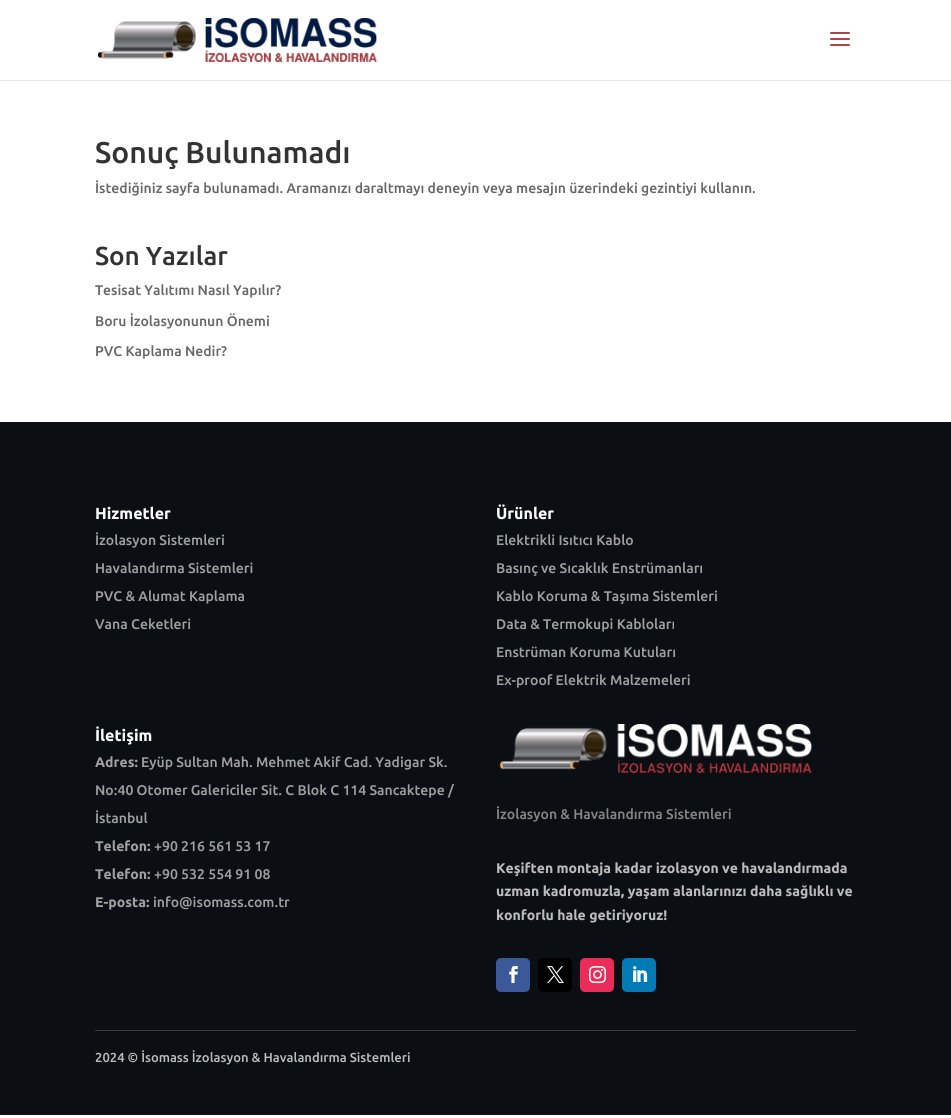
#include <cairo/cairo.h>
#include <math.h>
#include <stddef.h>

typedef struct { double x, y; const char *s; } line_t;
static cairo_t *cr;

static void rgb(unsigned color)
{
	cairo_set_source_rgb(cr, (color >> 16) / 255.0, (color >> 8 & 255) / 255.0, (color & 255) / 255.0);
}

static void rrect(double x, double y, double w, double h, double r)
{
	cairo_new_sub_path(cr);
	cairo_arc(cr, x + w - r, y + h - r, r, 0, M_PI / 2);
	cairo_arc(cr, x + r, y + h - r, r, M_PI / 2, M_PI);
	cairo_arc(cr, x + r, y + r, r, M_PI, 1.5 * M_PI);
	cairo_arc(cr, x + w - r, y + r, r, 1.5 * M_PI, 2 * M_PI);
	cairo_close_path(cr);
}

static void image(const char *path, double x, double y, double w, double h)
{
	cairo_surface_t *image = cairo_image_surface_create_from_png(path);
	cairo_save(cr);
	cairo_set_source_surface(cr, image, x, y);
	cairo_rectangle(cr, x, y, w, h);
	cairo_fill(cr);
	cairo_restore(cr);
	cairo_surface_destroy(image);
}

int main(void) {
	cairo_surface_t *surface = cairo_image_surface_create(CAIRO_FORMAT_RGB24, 951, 1118);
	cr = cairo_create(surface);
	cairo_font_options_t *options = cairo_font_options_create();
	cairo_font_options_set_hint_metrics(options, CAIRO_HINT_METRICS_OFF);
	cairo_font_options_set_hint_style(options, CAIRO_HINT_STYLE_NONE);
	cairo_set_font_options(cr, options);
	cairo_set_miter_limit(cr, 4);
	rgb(0xffffff);
	cairo_paint(cr);
	rgb(0xe6e6e6);
	cairo_rectangle(cr, 0, 80, 951, 1);
	cairo_fill(cr);
	image("img/1.png", 98, 18, 279, 44);
	image("img/2.png", 830, 32, 20, 14);
	rgb(0x0b0f14);
	cairo_rectangle(cr, 0, 422, 951, 693);
	cairo_fill(cr);
	image("img/3.png", 496, 724, 316, 49);
	rgb(0x3b5998);
	rrect(496, 958, 34, 34, 5);
	cairo_fill(cr);
	image("img/4.png", 509, 966, 9, 18);
	rgb(0x000000);
	rrect(538, 958, 34, 34, 5);
	cairo_fill(cr);
	image("img/5.png", 547, 966, 17, 18);
	rgb(0xea2c59);
	rrect(580, 958, 34, 34, 5);
	cairo_fill(cr);
	image("img/6.png", 589, 966, 17, 18);
	rgb(0x007bb6);
	rrect(622, 958, 34, 34, 5);
	cairo_fill(cr);
	image("img/7.png", 633, 966, 15, 16);
	rgb(0x3a3a3a);
	cairo_rectangle(cr, 95, 1030, 761, 1);
	cairo_fill(cr);
	cairo_select_font_face(cr, "Ubuntu Medium", CAIRO_FONT_SLANT_NORMAL, CAIRO_FONT_WEIGHT_NORMAL);
	cairo_set_font_size(cr, 30);
	rgb(0x333333);
	cairo_move_to(cr, 95, 163);
	cairo_show_text(cr, "Sonuç Bulunamadı");
	cairo_set_font_size(cr, 14);
	rgb(0x666666);
	cairo_move_to(cr, 95, 193);
	cairo_show_text(cr, "İstediğiniz sayfa bulunamadı. Aramanızı daraltmayı deneyin veya mesajın üzerindeki gezintiyi kullanın.");
	cairo_set_font_size(cr, 26);
	rgb(0x333333);
	cairo_move_to(cr, 95, 265);
	cairo_show_text(cr, "Son Yazılar");
	cairo_set_font_size(cr, 14);
	rgb(0x666666);
	{
		static const line_t items[] = {
			{95, 295, "Tesisat Yalıtımı Nasıl Yapılır?"},
			{95, 326, "Boru İzolasyonunun Önemi"},
			{95, 356, "PVC Kaplama Nedir?"},
		};
		for (size_t i = 0; i < sizeof items / sizeof *items; i++) {
			cairo_move_to(cr, items[i].x, items[i].y);
			cairo_show_text(cr, items[i].s);
		}
	}
	cairo_select_font_face(cr, "Ubuntu", CAIRO_FONT_SLANT_NORMAL, CAIRO_FONT_WEIGHT_BOLD);
	cairo_set_font_size(cr, 16);
	rgb(0xffffff);
	cairo_move_to(cr, 95, 519);
	cairo_show_text(cr, "Hizmetler");
	cairo_select_font_face(cr, "Ubuntu Medium", CAIRO_FONT_SLANT_NORMAL, CAIRO_FONT_WEIGHT_NORMAL);
	cairo_set_font_size(cr, 14);
	rgb(0xa0a0a0);
	{
		static const line_t items[] = {
			{95, 545, "İzolasyon Sistemleri"},
			{95, 573, "Havalandırma Sistemleri"},
			{95, 601, "PVC & Alumat Kaplama"},
			{95, 629, "Vana Ceketleri"},
		};
		for (size_t i = 0; i < sizeof items / sizeof *items; i++) {
			cairo_move_to(cr, items[i].x, items[i].y);
			cairo_show_text(cr, items[i].s);
		}
	}
	cairo_select_font_face(cr, "Ubuntu", CAIRO_FONT_SLANT_NORMAL, CAIRO_FONT_WEIGHT_BOLD);
	cairo_set_font_size(cr, 16);
	rgb(0xffffff);
	cairo_move_to(cr, 496, 519);
	cairo_show_text(cr, "Ürünler");
	cairo_select_font_face(cr, "Ubuntu Medium", CAIRO_FONT_SLANT_NORMAL, CAIRO_FONT_WEIGHT_NORMAL);
	cairo_set_font_size(cr, 14);
	rgb(0xa0a0a0);
	{
		static const line_t items[] = {
			{496, 545, "Elektrikli Isıtıcı Kablo"},
			{496, 573, "Basınç ve Sıcaklık Enstrümanları"},
			{496, 601, "Kablo Koruma & Taşıma Sistemleri"},
			{496, 629, "Data & Termokupi Kabloları"},
			{496, 657, "Enstrüman Koruma Kutuları"},
			{496, 685, "Ex-proof Elektrik Malzemeleri"},
		};
		for (size_t i = 0; i < sizeof items / sizeof *items; i++) {
			cairo_move_to(cr, items[i].x, items[i].y);
			cairo_show_text(cr, items[i].s);
		}
	}
	cairo_select_font_face(cr, "Ubuntu", CAIRO_FONT_SLANT_NORMAL, CAIRO_FONT_WEIGHT_BOLD);
	cairo_set_font_size(cr, 16);
	rgb(0xffffff);
	cairo_move_to(cr, 95, 741);
	cairo_show_text(cr, "İletişim");
	cairo_set_font_size(cr, 14);
	rgb(0xa0a0a0);
	cairo_move_to(cr, 95, 767);
	cairo_show_text(cr, "Adres:");
	cairo_select_font_face(cr, "Ubuntu Medium", CAIRO_FONT_SLANT_NORMAL, CAIRO_FONT_WEIGHT_NORMAL);
	{
		static const line_t items[] = {
			{141, 767, "Eyüp Sultan Mah. Mehmet Akif Cad. Yadigar Sk."},
			{95, 795, "No:40 Otomer Galericiler Sit. C Blok C 114 Sancaktepe /"},
			{95, 823, "İstanbul"},
		};
		for (size_t i = 0; i < sizeof items / sizeof *items; i++) {
			cairo_move_to(cr, items[i].x, items[i].y);
			cairo_show_text(cr, items[i].s);
		}
	}
	cairo_select_font_face(cr, "Ubuntu", CAIRO_FONT_SLANT_NORMAL, CAIRO_FONT_WEIGHT_BOLD);
	cairo_move_to(cr, 95, 851);
	cairo_show_text(cr, "Telefon:");
	cairo_select_font_face(cr, "Ubuntu Medium", CAIRO_FONT_SLANT_NORMAL, CAIRO_FONT_WEIGHT_NORMAL);
	cairo_move_to(cr, 154, 851);
	cairo_show_text(cr, "+90 216 561 53 17");
	cairo_select_font_face(cr, "Ubuntu", CAIRO_FONT_SLANT_NORMAL, CAIRO_FONT_WEIGHT_BOLD);
	cairo_move_to(cr, 95, 879);
	cairo_show_text(cr, "Telefon:");
	cairo_select_font_face(cr, "Ubuntu Medium", CAIRO_FONT_SLANT_NORMAL, CAIRO_FONT_WEIGHT_NORMAL);
	cairo_move_to(cr, 154, 879);
	cairo_show_text(cr, "+90 532 554 91 08");
	cairo_select_font_face(cr, "Ubuntu", CAIRO_FONT_SLANT_NORMAL, CAIRO_FONT_WEIGHT_BOLD);
	cairo_move_to(cr, 95, 907);
	cairo_show_text(cr, "E-posta:");
	cairo_select_font_face(cr, "Ubuntu Medium", CAIRO_FONT_SLANT_NORMAL, CAIRO_FONT_WEIGHT_NORMAL);
	cairo_move_to(cr, 153, 907);
	cairo_show_text(cr, "info@isomass.com.tr");
	rgb(0x878787);
	cairo_move_to(cr, 496, 819);
	cairo_show_text(cr, "İzolasyon & Havalandırma Sistemleri");
	cairo_select_font_face(cr, "Ubuntu", CAIRO_FONT_SLANT_NORMAL, CAIRO_FONT_WEIGHT_BOLD);
	rgb(0xbcbcbc);
	{
		static const line_t items[] = {
			{496, 873, "Keşiften montaja kadar izolasyon ve havalandırmada"},
			{496, 896, "uzman kadromuzla, yaşam alanlarınızı daha sağlıklı ve"},
			{496, 920, "konforlu hale getiriyoruz!"},
		};
		for (size_t i = 0; i < sizeof items / sizeof *items; i++) {
			cairo_move_to(cr, items[i].x, items[i].y);
			cairo_show_text(cr, items[i].s);
		}
	}
	cairo_select_font_face(cr, "Ubuntu Medium", CAIRO_FONT_SLANT_NORMAL, CAIRO_FONT_WEIGHT_NORMAL);
	cairo_set_font_size(cr, 13);
	cairo_move_to(cr, 95, 1062);
	cairo_show_text(cr, "2024 © İsomass İzolasyon & Havalandırma Sistemleri");
	cairo_surface_write_to_png(surface, "page.png");
	cairo_font_options_destroy(options);
	cairo_destroy(cr);
	cairo_surface_destroy(surface);
	return 0;
}
